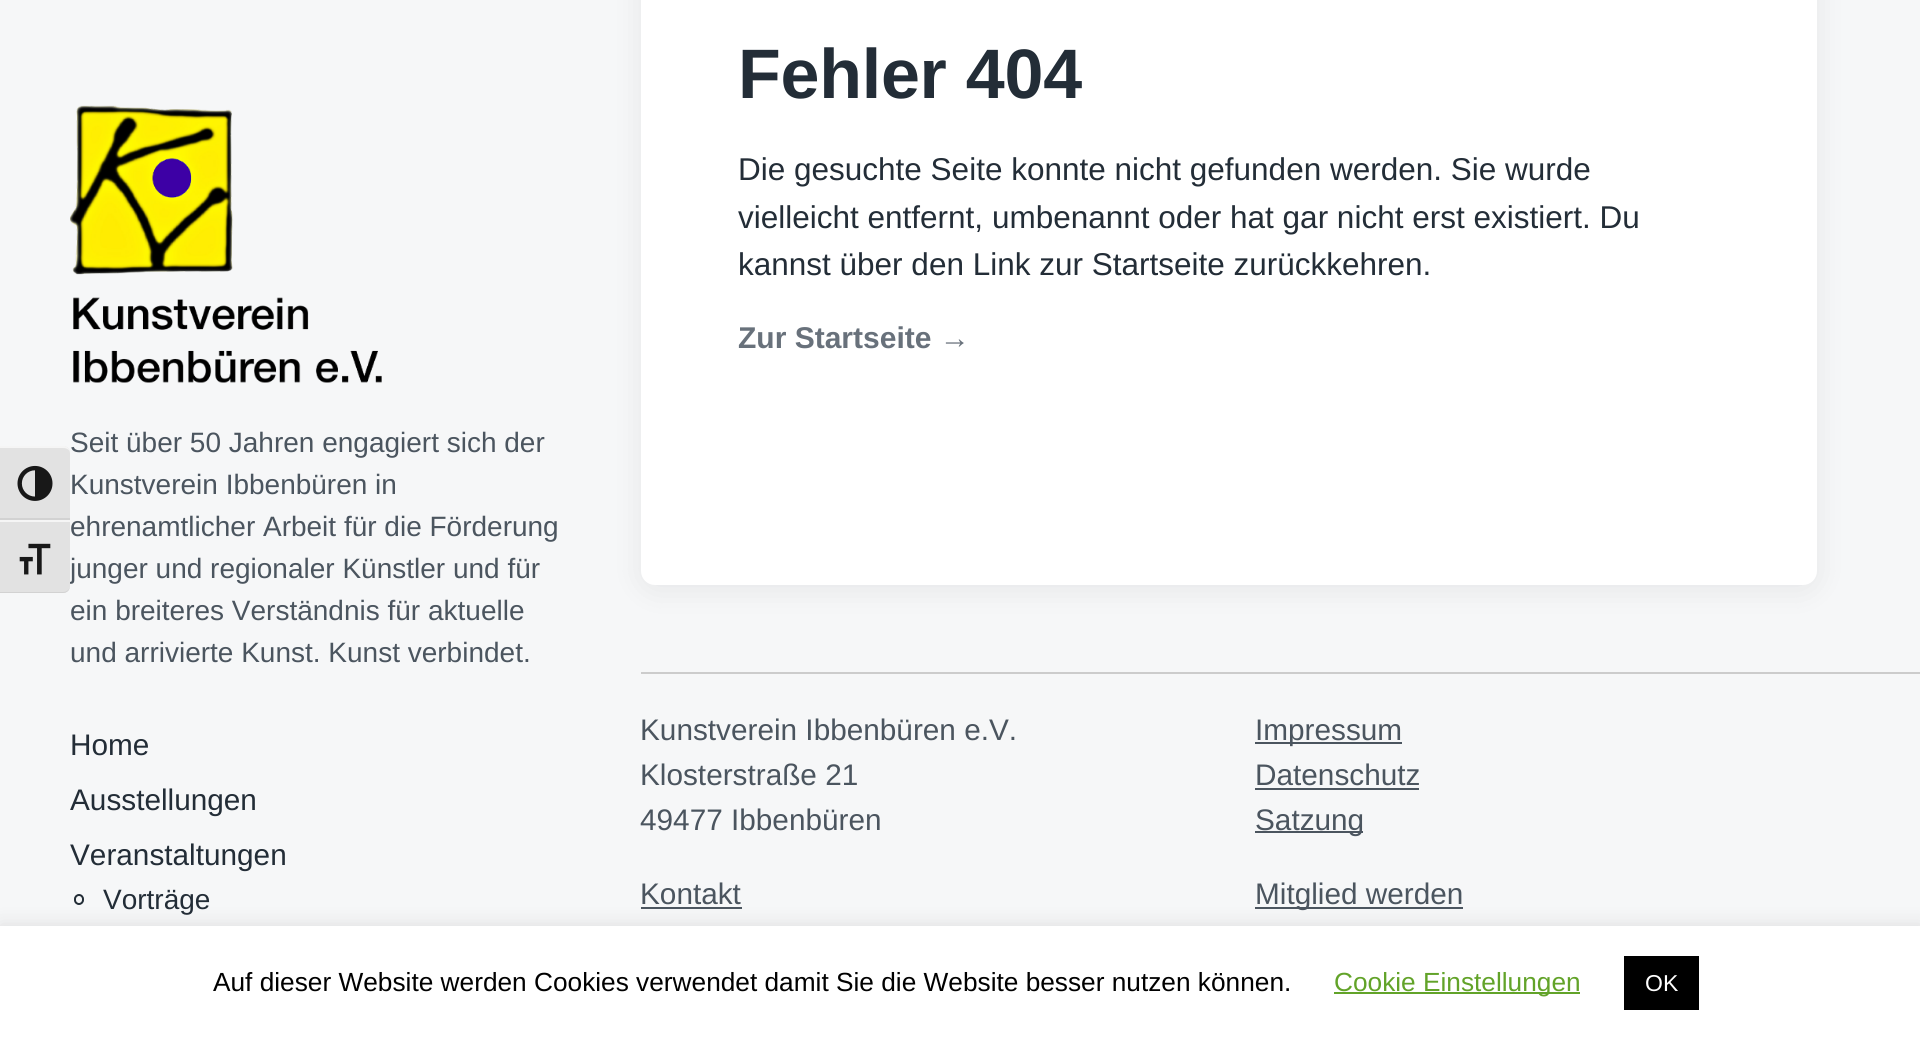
#include <cairo/cairo.h>
#include <math.h>
#include <stddef.h>

typedef struct { double x, y; const char *s; } line_t;
typedef struct { double x, y, w, h; unsigned color; } box_t;
static cairo_t *cr;

static void rgb(unsigned color)
{
	cairo_set_source_rgb(cr, (color >> 16) / 255.0, (color >> 8 & 255) / 255.0, (color & 255) / 255.0);
}

static void tracked(double x, double y, const char *s, double letter, double word)
{
	cairo_move_to(cr, x, y);
	while (*s) {
		char ch[5] = {0};
		int n = 0;
		do ch[n++] = *s++; while ((*s & 0xC0) == 0x80);
		cairo_show_text(cr, ch);
		cairo_rel_move_to(cr, letter + word * (*ch == ' '), 0);
	}
}

static void rrect(double x, double y, double w, double h, double r)
{
	cairo_new_sub_path(cr);
	cairo_arc(cr, x + w - r, y + h - r, r, 0, M_PI / 2);
	cairo_arc(cr, x + r, y + h - r, r, M_PI / 2, M_PI);
	cairo_arc(cr, x + r, y + r, r, M_PI, 1.5 * M_PI);
	cairo_arc(cr, x + w - r, y + r, r, 1.5 * M_PI, 2 * M_PI);
	cairo_close_path(cr);
}

static void soft_shadow(double x, double y, double w, double h, double r, double blur, double alpha)
{
	cairo_push_group_with_content(cr, CAIRO_CONTENT_ALPHA);
	cairo_set_operator(cr, CAIRO_OPERATOR_SOURCE);
	for (int i = 15; i >= -15 && fmin(w, h) + blur * i / 3 > 0; i -= 2) {
		double e = blur * i / 6;
		cairo_set_source_rgba(cr, 0, 0, 0, alpha * erfc((i - 1) / 8.5) / 2);
		rrect(x - e, y - e, w + 2 * e, h + 2 * e, fmax(0, fmin(r + e + blur * .6, fmin(w, h) / 2 + e)));
		cairo_fill(cr);
	}
	cairo_pattern_t *soft = cairo_pop_group(cr);
	cairo_mask(cr, soft);
	cairo_pattern_destroy(soft);
}

static void image(const char *path, double x, double y, double w, double h)
{
	cairo_surface_t *image = cairo_image_surface_create_from_png(path);
	cairo_save(cr);
	cairo_set_source_surface(cr, image, x, y);
	cairo_rectangle(cr, x, y, w, h);
	cairo_fill(cr);
	cairo_restore(cr);
	cairo_surface_destroy(image);
}

int main(void) {
	cairo_surface_t *surface = cairo_image_surface_create(CAIRO_FORMAT_RGB24, 1920, 1038);
	cr = cairo_create(surface);
	cairo_font_options_t *options = cairo_font_options_create();
	cairo_font_options_set_hint_metrics(options, CAIRO_HINT_METRICS_OFF);
	cairo_font_options_set_hint_style(options, CAIRO_HINT_STYLE_NONE);
	cairo_set_font_options(cr, options);
	cairo_set_miter_limit(cr, 4);
	rgb(0xf6f7f8);
	cairo_paint(cr);
	rgb(0xe2e2e2);
	cairo_new_path(cr);
	cairo_move_to(cr, 0, 446);
	cairo_line_to(cr, 63, 446);
	cairo_curve_to(cr, 67, 446, 70, 449, 70, 453);
	cairo_line_to(cr, 70, 520);
	cairo_line_to(cr, 0, 520);
	cairo_close_path(cr);
	cairo_fill(cr);
	rgb(0xf5f5f5);
	cairo_new_path(cr);
	cairo_move_to(cr, 0, 448);
	cairo_line_to(cr, 63, 448);
	cairo_curve_to(cr, 67, 448, 70, 450, 70, 453);
	cairo_curve_to(cr, 70, 450, 68, 447, 65, 446);
	cairo_line_to(cr, 0, 446);
	cairo_close_path(cr);
	cairo_fill(cr);
	rgb(0xd2d2d2);
	cairo_rectangle(cr, 0, 518, 70, 2);
	cairo_fill(cr);
	image("img/1.png", 17, 465, 36, 36);
	rgb(0x050a0f);
	soft_shadow(641, -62, 1176, 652, 14, 16, 0.07);
	rgb(0xffffff);
	rrect(641, -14, 1176, 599, 14);
	cairo_fill(cr);
	image("img/3.png", 70, 105, 312, 278);
	rrect(75, 895, 8, 9, 4);
	rgb(0x232d37);
	cairo_stroke(cr);
	{
		static const box_t items[] = {
			{641, 672, 1279, 2, 0xcccccc},
			{641, 907, 101, 2, 0x4b555f},
			{1255, 742, 147, 2, 0x4b555f},
			{1255, 788, 164, 2, 0x4b555f},
			{1255, 831, 108, 2, 0x4b555f},
			{1255, 907, 208, 2, 0x4b555f},
		};
		for (size_t i = 0; i < sizeof items / sizeof *items; i++) {
			rgb(items[i].color);
			cairo_rectangle(cr, items[i].x, items[i].y, items[i].w, items[i].h);
			cairo_fill(cr);
		}
	}
	rgb(0xacabab);
	soft_shadow(0, 924, 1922, 114, 0, 9, 0.3);
	{
		static const box_t items[] = {
			{0, 926, 1920, 112, 0xffffff},
			{1334, 992, 246, 2, 0x62a329},
			{1624, 956, 75, 54, 0x000000},
		};
		for (size_t i = 0; i < sizeof items / sizeof *items; i++) {
			rgb(items[i].color);
			cairo_rectangle(cr, items[i].x, items[i].y, items[i].w, items[i].h);
			cairo_fill(cr);
		}
	}
	cairo_select_font_face(cr, "Liberation Sans", CAIRO_FONT_SLANT_NORMAL, CAIRO_FONT_WEIGHT_BOLD);
	cairo_set_font_size(cr, 70);
	rgb(0x232d37);
	tracked(738, 98, "Fehler 404", -0.25, 0);
	cairo_select_font_face(cr, "Liberation Sans", CAIRO_FONT_SLANT_NORMAL, CAIRO_FONT_WEIGHT_NORMAL);
	cairo_set_font_size(cr, 31.5);
	{
		static const line_t items[] = {
			{738, 180, "Die gesuchte Seite konnte nicht gefunden werden. Sie wurde"},
			{738, 228, "vielleicht entfernt, umbenannt oder hat gar nicht erst existiert. Du"},
			{738, 275, "kannst über den Link zur Startseite zurückkehren."},
		};
		for (size_t i = 0; i < sizeof items / sizeof *items; i++) {
			cairo_move_to(cr, items[i].x, items[i].y);
			cairo_show_text(cr, items[i].s);
		}
	}
	cairo_select_font_face(cr, "Liberation Sans", CAIRO_FONT_SLANT_NORMAL, CAIRO_FONT_WEIGHT_BOLD);
	cairo_set_font_size(cr, 30);
	rgb(0x68717b);
	cairo_move_to(cr, 738, 348);
	cairo_show_text(cr, "Zur Startseite →");
	cairo_select_font_face(cr, "Liberation Sans", CAIRO_FONT_SLANT_NORMAL, CAIRO_FONT_WEIGHT_NORMAL);
	cairo_set_font_size(cr, 28);
	rgb(0x4b555f);
	{
		static const line_t items[] = {
			{70, 452, "Seit über 50 Jahren engagiert sich der"},
			{70, 494, "Kunstverein Ibbenbüren in"},
			{70, 536, "ehrenamtlicher Arbeit für die Förderung"},
			{70, 578, "junger und regionaler Künstler und für"},
		};
		for (size_t i = 0; i < sizeof items / sizeof *items; i++) {
			cairo_move_to(cr, items[i].x, items[i].y);
			cairo_show_text(cr, items[i].s);
		}
	}
	rgb(0xe2e2e2);
	cairo_new_path(cr);
	cairo_move_to(cr, 0, 520);
	cairo_line_to(cr, 70, 520);
	cairo_line_to(cr, 70, 586);
	cairo_curve_to(cr, 70, 590, 67, 593, 63, 593);
	cairo_line_to(cr, 0, 593);
	cairo_close_path(cr);
	cairo_fill(cr);
	image("img/2.png", 19, 543, 32, 32);
	rgb(0xd2d2d2);
	cairo_new_path(cr);
	cairo_move_to(cr, 0, 592);
	cairo_line_to(cr, 0, 593);
	cairo_line_to(cr, 63, 593);
	cairo_curve_to(cr, 67, 593, 70, 590, 70, 586);
	cairo_curve_to(cr, 70, 589, 67, 592, 63, 592);
	cairo_close_path(cr);
	cairo_fill(cr);
	rgb(0xf5f5f5);
	cairo_rectangle(cr, 0, 520, 70, 2);
	cairo_fill(cr);
	rgb(0x4b555f);
	cairo_move_to(cr, 70, 620);
	cairo_show_text(cr, "ein breiteres Verständnis für aktuelle");
	cairo_move_to(cr, 70, 662);
	cairo_show_text(cr, "und arrivierte Kunst. Kunst verbindet.");
	cairo_set_font_size(cr, 29.75);
	rgb(0x232d37);
	{
		static const line_t items[] = {
			{70, 755, "Home"},
			{70, 810, "Ausstellungen"},
			{70, 865, "Veranstaltungen"},
		};
		for (size_t i = 0; i < sizeof items / sizeof *items; i++) {
			cairo_move_to(cr, items[i].x, items[i].y);
			cairo_show_text(cr, items[i].s);
		}
	}
	cairo_set_font_size(cr, 28);
	cairo_move_to(cr, 103, 909);
	cairo_show_text(cr, "Vorträge");
	cairo_set_font_size(cr, 29.75);
	rgb(0x4b555f);
	{
		static const line_t items[] = {
			{640, 740, "Kunstverein Ibbenbüren e.V."},
			{640, 785, "Klosterstraße 21"},
			{640, 830, "49477 Ibbenbüren"},
			{640, 904, "Kontakt"},
			{1255, 740, "Impressum"},
			{1255, 785, "Datenschutz"},
			{1255, 830, "Satzung"},
			{1255, 904, "Mitglied werden"},
		};
		for (size_t i = 0; i < sizeof items / sizeof *items; i++) {
			cairo_move_to(cr, items[i].x, items[i].y);
			cairo_show_text(cr, items[i].s);
		}
	}
	cairo_set_font_size(cr, 26.25);
	rgb(0x000000);
	cairo_move_to(cr, 213, 991);
	cairo_show_text(cr, "Auf dieser Website werden Cookies verwendet damit Sie die Website besser nutzen können.");
	rgb(0x62a329);
	cairo_move_to(cr, 1334, 991);
	cairo_show_text(cr, "Cookie Einstellungen");
	cairo_set_font_size(cr, 23);
	rgb(0xffffff);
	cairo_move_to(cr, 1645, 991);
	cairo_show_text(cr, "OK");
	cairo_surface_write_to_png(surface, "page.png");
	cairo_font_options_destroy(options);
	cairo_destroy(cr);
	cairo_surface_destroy(surface);
	return 0;
}
